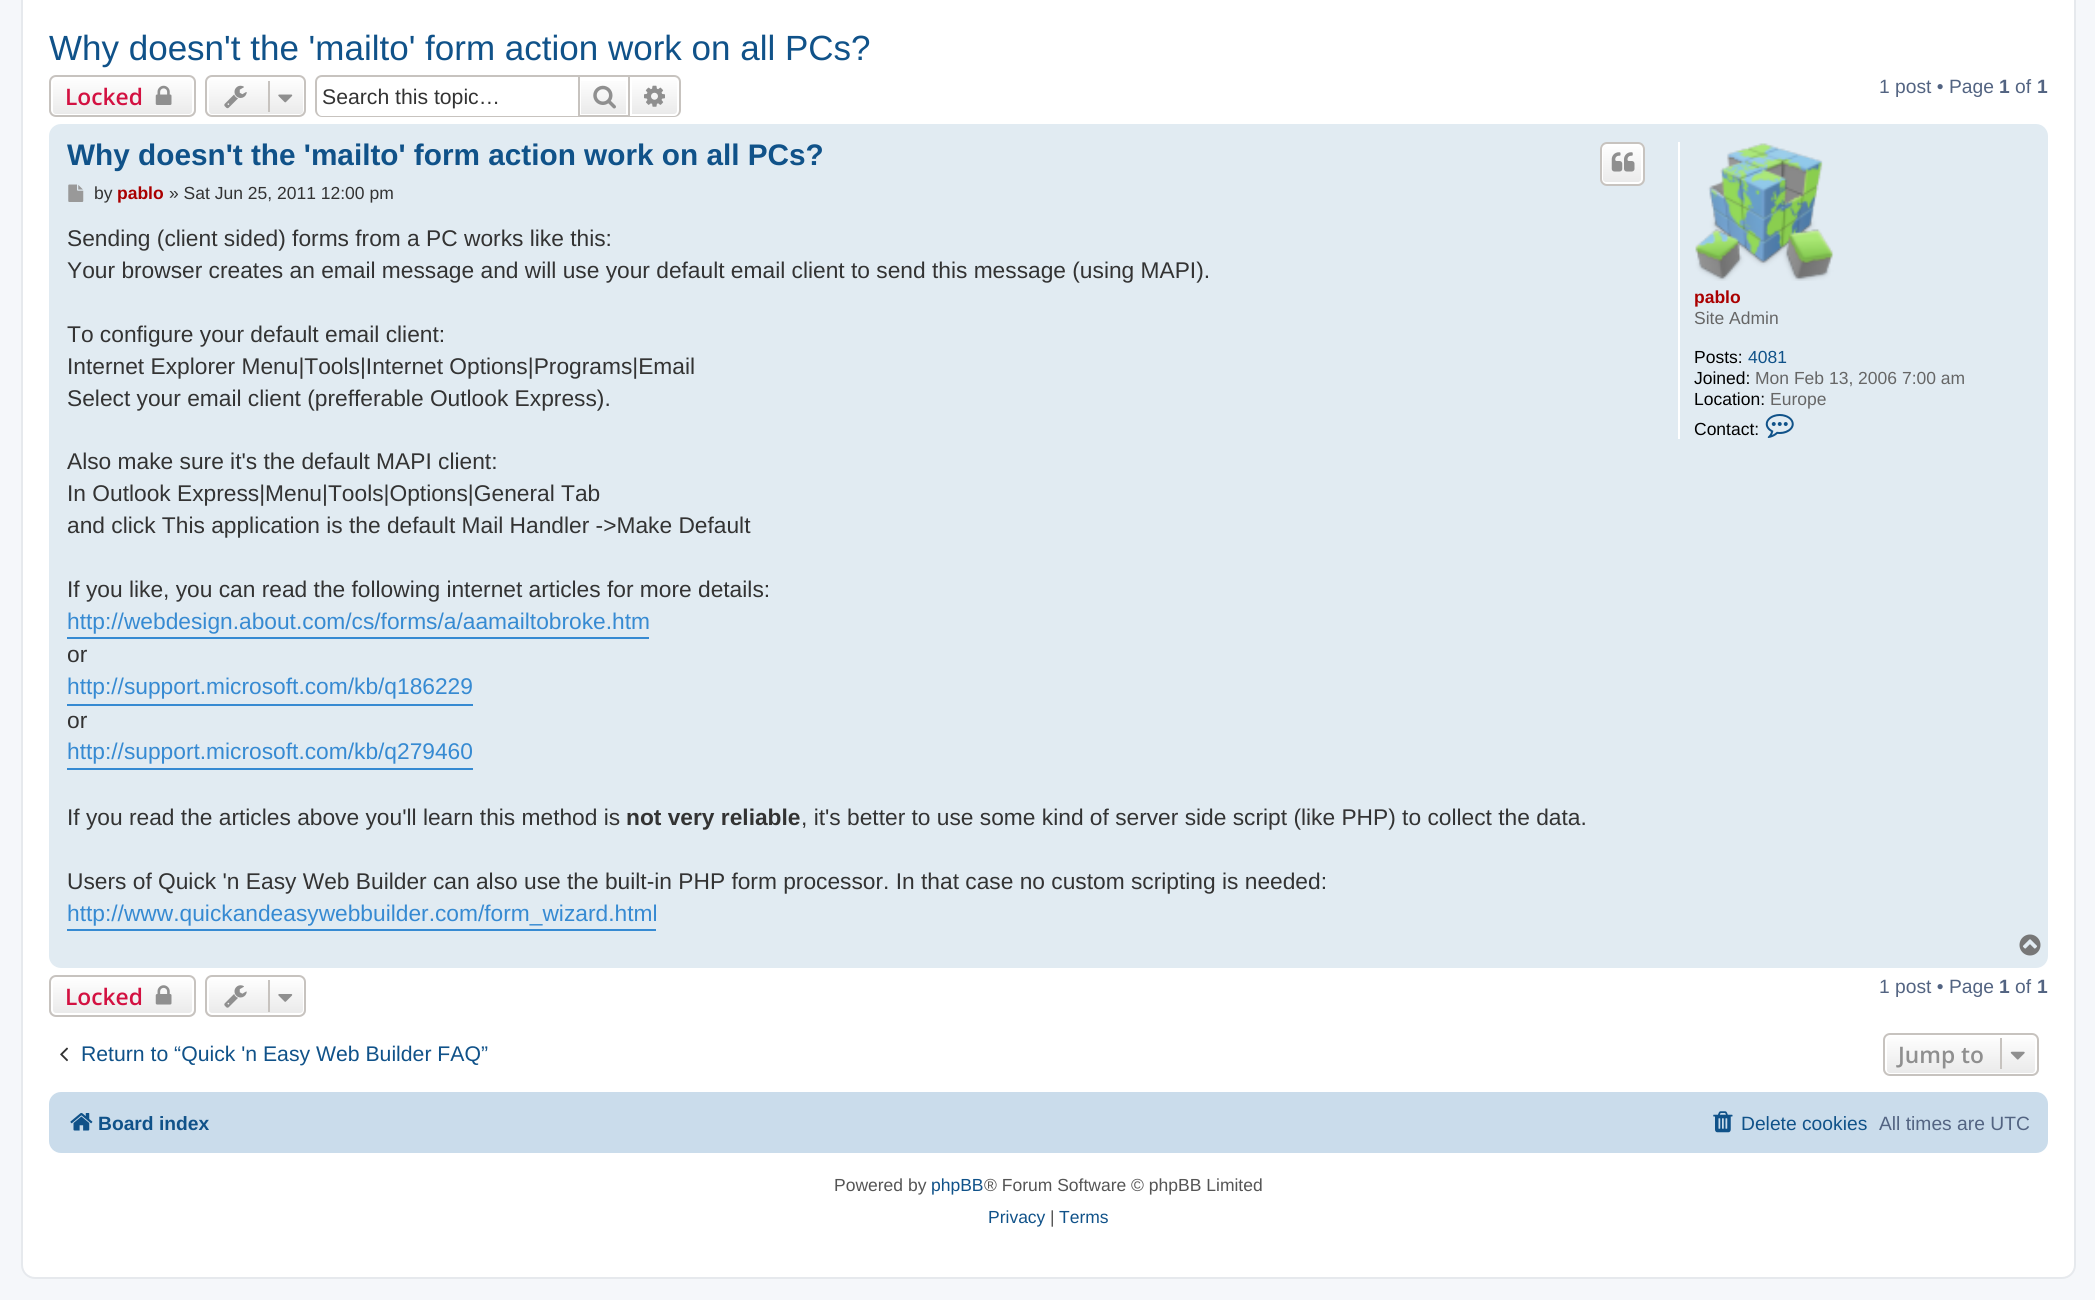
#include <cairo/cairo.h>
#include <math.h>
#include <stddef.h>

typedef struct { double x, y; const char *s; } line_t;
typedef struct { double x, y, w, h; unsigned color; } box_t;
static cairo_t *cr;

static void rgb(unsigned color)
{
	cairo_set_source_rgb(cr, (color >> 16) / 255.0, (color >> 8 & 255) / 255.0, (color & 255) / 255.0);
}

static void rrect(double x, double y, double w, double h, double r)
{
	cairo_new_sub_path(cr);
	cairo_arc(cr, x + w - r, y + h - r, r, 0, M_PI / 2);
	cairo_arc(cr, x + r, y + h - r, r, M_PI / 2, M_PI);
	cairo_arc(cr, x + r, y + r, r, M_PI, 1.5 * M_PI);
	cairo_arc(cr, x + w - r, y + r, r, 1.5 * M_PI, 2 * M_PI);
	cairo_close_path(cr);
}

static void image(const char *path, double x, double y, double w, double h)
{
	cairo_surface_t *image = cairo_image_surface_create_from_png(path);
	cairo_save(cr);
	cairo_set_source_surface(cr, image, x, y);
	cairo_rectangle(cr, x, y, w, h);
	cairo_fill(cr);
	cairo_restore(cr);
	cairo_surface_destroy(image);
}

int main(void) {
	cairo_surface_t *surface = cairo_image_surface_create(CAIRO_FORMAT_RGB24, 2095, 1300);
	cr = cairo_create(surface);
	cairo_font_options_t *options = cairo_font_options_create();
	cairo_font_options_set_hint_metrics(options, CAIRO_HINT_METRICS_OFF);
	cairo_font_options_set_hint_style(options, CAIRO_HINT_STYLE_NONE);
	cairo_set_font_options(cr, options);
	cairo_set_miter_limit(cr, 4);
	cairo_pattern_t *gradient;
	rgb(0xf5f7fa);
	cairo_paint(cr);
	rgb(0xffffff);
	rrect(22, -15, 2053, 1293, 13);
	cairo_fill_preserve(cr);
	rgb(0xe6e9ed);
	cairo_stroke(cr);
	cairo_save(cr);
	rrect(49, 75, 147, 42, 7);
	cairo_clip(cr);
	gradient = cairo_pattern_create_linear(123, 77, 123, 116);
	cairo_pattern_add_color_stop_rgba(gradient, 0, 1, 1, 1, 1);
	cairo_pattern_add_color_stop_rgba(gradient, 1, 0.914, 0.914, 0.914, 1);
	cairo_set_source(cr, gradient);
	cairo_pattern_destroy(gradient);
	cairo_rectangle(cr, 49, 77, 147, 39);
	cairo_fill(cr);
	cairo_restore(cr);
	rrect(52, 78, 141, 37, 4);
	rgb(0xffffff);
	cairo_stroke(cr);
	rrect(50, 76, 145, 40, 6);
	rgb(0xc7c3bf);
	cairo_stroke(cr);
	image("img/1.png", 155, 85, 17, 20);
	cairo_save(cr);
	rrect(205, 75, 101, 42, 7);
	cairo_clip(cr);
	gradient = cairo_pattern_create_linear(256, 77, 256, 116);
	cairo_pattern_add_color_stop_rgba(gradient, 0, 1, 1, 1, 1);
	cairo_pattern_add_color_stop_rgba(gradient, 1, 0.914, 0.914, 0.914, 1);
	cairo_set_source(cr, gradient);
	cairo_pattern_destroy(gradient);
	cairo_rectangle(cr, 205, 77, 101, 39);
	cairo_fill(cr);
	cairo_restore(cr);
	rrect(208, 78, 96, 37, 4);
	rgb(0xffffff);
	cairo_stroke(cr);
	rrect(206, 76, 99, 40, 6);
	rgb(0xc7c3bf);
	cairo_stroke(cr);
	image("img/2.png", 224, 85, 23, 24);
	cairo_rectangle(cr, 268, 81, 2, 31);
	cairo_fill(cr);
	image("img/3.png", 278, 94, 15, 9);
	cairo_set_fill_rule(cr, CAIRO_FILL_RULE_EVEN_ODD);
	cairo_new_path(cr);
	cairo_move_to(cr, 322, 75);
	cairo_line_to(cr, 578, 75);
	cairo_line_to(cr, 578, 117);
	cairo_line_to(cr, 322, 117);
	cairo_curve_to(cr, 318, 117, 315, 114, 315, 110);
	cairo_line_to(cr, 315, 82);
	cairo_curve_to(cr, 315, 78, 318, 75, 322, 75);
	cairo_close_path(cr);
	cairo_move_to(cr, 322, 77);
	cairo_line_to(cr, 578, 77);
	cairo_line_to(cr, 578, 116);
	cairo_line_to(cr, 322, 116);
	cairo_curve_to(cr, 319, 116, 317, 113, 317, 110);
	cairo_line_to(cr, 317, 82);
	cairo_curve_to(cr, 317, 79, 319, 77, 322, 77);
	cairo_close_path(cr);
	cairo_fill(cr);
	gradient = cairo_pattern_create_linear(604, 77, 604, 116);
	cairo_pattern_add_color_stop_rgba(gradient, 0, 1, 1, 1, 1);
	cairo_pattern_add_color_stop_rgba(gradient, 1, 0.914, 0.914, 0.914, 1);
	cairo_set_source(cr, gradient);
	cairo_pattern_destroy(gradient);
	cairo_rectangle(cr, 581, 81, 45, 33);
	cairo_fill(cr);
	cairo_rectangle(cr, 579, 76, 50, 40);
	rgb(0xc7c3bf);
	cairo_stroke(cr);
	image("img/4.png", 593, 85, 23, 24);
	gradient = cairo_pattern_create_linear(655, 77, 655, 116);
	cairo_pattern_add_color_stop_rgba(gradient, 0, 1, 1, 1, 1);
	cairo_pattern_add_color_stop_rgba(gradient, 1, 0.914, 0.914, 0.914, 1);
	cairo_set_source(cr, gradient);
	cairo_pattern_destroy(gradient);
	cairo_new_path(cr);
	cairo_move_to(cr, 631, 78);
	cairo_line_to(cr, 674, 78);
	cairo_curve_to(cr, 676, 78, 678, 80, 678, 82);
	cairo_line_to(cr, 678, 111);
	cairo_curve_to(cr, 678, 113, 676, 115, 674, 115);
	cairo_line_to(cr, 631, 115);
	cairo_close_path(cr);
	cairo_fill_preserve(cr);
	rgb(0xffffff);
	cairo_stroke(cr);
	rgb(0xc7c3bf);
	cairo_new_path(cr);
	cairo_move_to(cr, 630, 75);
	cairo_line_to(cr, 674, 75);
	cairo_curve_to(cr, 678, 75, 681, 78, 681, 82);
	cairo_line_to(cr, 681, 110);
	cairo_curve_to(cr, 681, 114, 678, 117, 674, 117);
	cairo_line_to(cr, 630, 117);
	cairo_close_path(cr);
	cairo_move_to(cr, 630, 77);
	cairo_line_to(cr, 674, 77);
	cairo_curve_to(cr, 677, 77, 679, 79, 679, 82);
	cairo_line_to(cr, 679, 110);
	cairo_curve_to(cr, 679, 113, 677, 116, 674, 116);
	cairo_line_to(cr, 630, 116);
	cairo_close_path(cr);
	cairo_fill(cr);
	image("img/5.png", 644, 85, 21, 22);
	rgb(0xe1ebf2);
	rrect(49, 124, 1999, 844, 12);
	cairo_fill(cr);
	cairo_save(cr);
	cairo_set_fill_rule(cr, CAIRO_FILL_RULE_WINDING);
	rrect(1600, 142, 45, 44, 7);
	cairo_clip(cr);
	gradient = cairo_pattern_create_linear(1622, 144, 1622, 184);
	cairo_pattern_add_color_stop_rgba(gradient, 0, 1, 1, 1, 1);
	cairo_pattern_add_color_stop_rgba(gradient, 1, 0.914, 0.914, 0.914, 1);
	cairo_set_source(cr, gradient);
	cairo_pattern_destroy(gradient);
	cairo_rectangle(cr, 1600, 144, 45, 40);
	cairo_fill(cr);
	cairo_restore(cr);
	rrect(1602, 145, 40, 38, 4);
	rgb(0xffffff);
	cairo_stroke(cr);
	rrect(1601, 143, 43, 42, 6);
	rgb(0xc7c3bf);
	cairo_stroke(cr);
	image("img/6.png", 1611, 152, 24, 20);
	image("img/7.png", 68, 184, 16, 18);
	{
		static const box_t items[] = {
			{67, 637, 582, 2, 0x368ad2},
			{67, 704, 406, 2, 0x368ad2},
			{67, 768, 406, 2, 0x368ad2},
			{67, 929, 589, 2, 0x368ad2},
			{1678, 142, 2, 297, 0xffffff},
		};
		for (size_t i = 0; i < sizeof items / sizeof *items; i++) {
			rgb(items[i].color);
			cairo_rectangle(cr, items[i].x, items[i].y, items[i].w, items[i].h);
			cairo_fill(cr);
		}
	}
	image("img/8.png", 1695, 143, 139, 138);
	image("img/9.png", 1765, 414, 29, 24);
	image("img/10.png", 2019, 934, 22, 22);
	cairo_save(cr);
	cairo_set_fill_rule(cr, CAIRO_FILL_RULE_WINDING);
	rrect(49, 975, 147, 42, 7);
	cairo_clip(cr);
	gradient = cairo_pattern_create_linear(123, 977, 123, 1015);
	cairo_pattern_add_color_stop_rgba(gradient, 0, 1, 1, 1, 1);
	cairo_pattern_add_color_stop_rgba(gradient, 1, 0.914, 0.914, 0.914, 1);
	cairo_set_source(cr, gradient);
	cairo_pattern_destroy(gradient);
	cairo_rectangle(cr, 49, 977, 147, 38);
	cairo_fill(cr);
	cairo_restore(cr);
	rrect(52, 978, 141, 36, 4);
	cairo_stroke(cr);
	rrect(50, 976, 145, 40, 6);
	rgb(0xc7c3bf);
	cairo_stroke(cr);
	image("img/11.png", 155, 985, 17, 20);
	cairo_save(cr);
	cairo_set_fill_rule(cr, CAIRO_FILL_RULE_WINDING);
	rrect(205, 975, 101, 42, 7);
	cairo_clip(cr);
	gradient = cairo_pattern_create_linear(256, 977, 256, 1015);
	cairo_pattern_add_color_stop_rgba(gradient, 0, 1, 1, 1, 1);
	cairo_pattern_add_color_stop_rgba(gradient, 1, 0.914, 0.914, 0.914, 1);
	cairo_set_source(cr, gradient);
	cairo_pattern_destroy(gradient);
	cairo_rectangle(cr, 205, 977, 101, 38);
	cairo_fill(cr);
	cairo_restore(cr);
	rrect(208, 978, 96, 36, 4);
	rgb(0xffffff);
	cairo_stroke(cr);
	rrect(206, 976, 99, 40, 6);
	rgb(0xc7c3bf);
	cairo_stroke(cr);
	image("img/12.png", 224, 985, 23, 23);
	cairo_rectangle(cr, 268, 980, 2, 32);
	cairo_fill(cr);
	image("img/13.png", 278, 994, 15, 8);
	image("img/14.png", 60, 1047, 8, 15);
	cairo_save(cr);
	cairo_set_fill_rule(cr, CAIRO_FILL_RULE_WINDING);
	rrect(1883, 1033, 156, 43, 7);
	cairo_clip(cr);
	gradient = cairo_pattern_create_linear(1961, 1034, 1961, 1075);
	cairo_pattern_add_color_stop_rgba(gradient, 0, 1, 1, 1, 1);
	cairo_pattern_add_color_stop_rgba(gradient, 1, 0.914, 0.914, 0.914, 1);
	cairo_set_source(cr, gradient);
	cairo_pattern_destroy(gradient);
	cairo_rectangle(cr, 1883, 1034, 156, 41);
	cairo_fill(cr);
	cairo_restore(cr);
	rrect(1886, 1035, 150, 39, 4);
	rgb(0xffffff);
	cairo_stroke(cr);
	rrect(1884, 1034, 154, 41, 6);
	rgb(0xc7c3bf);
	cairo_stroke(cr);
	cairo_rectangle(cr, 2000, 1038, 2, 31);
	cairo_fill(cr);
	image("img/15.png", 2010, 1051, 15, 9);
	rgb(0xcadceb);
	rrect(49, 1092, 1999, 61, 12);
	cairo_fill(cr);
	image("img/16.png", 70, 1113, 23, 18);
	image("img/17.png", 1713, 1111, 20, 22);
	cairo_select_font_face(cr, "Liberation Sans", CAIRO_FONT_SLANT_NORMAL, CAIRO_FONT_WEIGHT_NORMAL);
	cairo_set_font_size(cr, 35);
	rgb(0x105289);
	cairo_move_to(cr, 49, 60);
	cairo_show_text(cr, "Why doesn't the 'mailto' form action work on all PCs?");
	cairo_select_font_face(cr, "Open Sans SemiBold", CAIRO_FONT_SLANT_NORMAL, CAIRO_FONT_WEIGHT_NORMAL);
	cairo_set_font_size(cr, 22.75);
	rgb(0xd31141);
	cairo_move_to(cr, 65, 105);
	cairo_show_text(cr, "Locked");
	cairo_select_font_face(cr, "Liberation Sans", CAIRO_FONT_SLANT_NORMAL, CAIRO_FONT_WEIGHT_NORMAL);
	cairo_set_font_size(cr, 21.2);
	rgb(0x333333);
	cairo_move_to(cr, 322, 104);
	cairo_show_text(cr, "Search this topic…");
	cairo_set_font_size(cr, 19.25);
	rgb(0x536482);
	cairo_move_to(cr, 1879, 93);
	cairo_show_text(cr, "1 post • Page");
	cairo_select_font_face(cr, "Liberation Sans", CAIRO_FONT_SLANT_NORMAL, CAIRO_FONT_WEIGHT_BOLD);
	cairo_move_to(cr, 1999, 93);
	cairo_show_text(cr, "1");
	cairo_select_font_face(cr, "Liberation Sans", CAIRO_FONT_SLANT_NORMAL, CAIRO_FONT_WEIGHT_NORMAL);
	cairo_move_to(cr, 2015, 93);
	cairo_show_text(cr, "of");
	cairo_select_font_face(cr, "Liberation Sans", CAIRO_FONT_SLANT_NORMAL, CAIRO_FONT_WEIGHT_BOLD);
	cairo_move_to(cr, 2037, 93);
	cairo_show_text(cr, "1");
	cairo_set_font_size(cr, 29.75);
	rgb(0x105289);
	cairo_move_to(cr, 67, 165);
	cairo_show_text(cr, "Why doesn't the 'mailto' form action work on all PCs?");
	cairo_select_font_face(cr, "Liberation Sans", CAIRO_FONT_SLANT_NORMAL, CAIRO_FONT_WEIGHT_NORMAL);
	cairo_set_font_size(cr, 17.5);
	rgb(0x333333);
	cairo_move_to(cr, 94, 199);
	cairo_show_text(cr, "by");
	cairo_select_font_face(cr, "Liberation Sans", CAIRO_FONT_SLANT_NORMAL, CAIRO_FONT_WEIGHT_BOLD);
	rgb(0xaa0000);
	cairo_move_to(cr, 117, 199);
	cairo_show_text(cr, "pablo");
	cairo_select_font_face(cr, "Liberation Sans", CAIRO_FONT_SLANT_NORMAL, CAIRO_FONT_WEIGHT_NORMAL);
	rgb(0x333333);
	cairo_move_to(cr, 169, 199);
	cairo_show_text(cr, "» Sat Jun 25, 2011 12:00 pm");
	cairo_set_font_size(cr, 22.75);
	{
		static const line_t items[] = {
			{67, 246, "Sending (client sided) forms from a PC works like this:"},
			{67, 278, "Your browser creates an email message and will use your default email client to send this message (using MAPI)."},
			{67, 342, "To configure your default email client:"},
			{67, 374, "Internet Explorer Menu|Tools|Internet Options|Programs|Email"},
			{67, 406, "Select your email client (prefferable Outlook Express)."},
			{67, 469, "Also make sure it's the default MAPI client:"},
			{67, 501, "In Outlook Express|Menu|Tools|Options|General Tab"},
			{67, 533, "and click This application is the default Mail Handler ->Make Default"},
			{67, 597, "If you like, you can read the following internet articles for more details:"},
		};
		for (size_t i = 0; i < sizeof items / sizeof *items; i++) {
			cairo_move_to(cr, items[i].x, items[i].y);
			cairo_show_text(cr, items[i].s);
		}
	}
	rgb(0x368ad2);
	cairo_move_to(cr, 67, 629);
	cairo_show_text(cr, "http://webdesign.about.com/cs/forms/a/aamailtobroke.htm");
	rgb(0x333333);
	cairo_move_to(cr, 67, 662);
	cairo_show_text(cr, "or");
	rgb(0x368ad2);
	cairo_move_to(cr, 67, 694);
	cairo_show_text(cr, "http://support.microsoft.com/kb/q186229");
	rgb(0x333333);
	cairo_move_to(cr, 67, 728);
	cairo_show_text(cr, "or");
	rgb(0x368ad2);
	cairo_move_to(cr, 67, 759);
	cairo_show_text(cr, "http://support.microsoft.com/kb/q279460");
	rgb(0x333333);
	cairo_move_to(cr, 67, 825);
	cairo_show_text(cr, "If you read the articles above you'll learn this method is");
	cairo_select_font_face(cr, "Liberation Sans", CAIRO_FONT_SLANT_NORMAL, CAIRO_FONT_WEIGHT_BOLD);
	cairo_move_to(cr, 626, 825);
	cairo_show_text(cr, "not very reliable");
	cairo_select_font_face(cr, "Liberation Sans", CAIRO_FONT_SLANT_NORMAL, CAIRO_FONT_WEIGHT_NORMAL);
	cairo_move_to(cr, 801, 825);
	cairo_show_text(cr, ", it's better to use some kind of server side script (like PHP) to collect the data.");
	cairo_move_to(cr, 67, 889);
	cairo_show_text(cr, "Users of Quick 'n Easy Web Builder can also use the built-in PHP form processor. In that case no custom scripting is needed:");
	rgb(0x368ad2);
	cairo_move_to(cr, 67, 921);
	cairo_show_text(cr, "http://www.quickandeasywebbuilder.com/form_wizard.html");
	cairo_select_font_face(cr, "Liberation Sans", CAIRO_FONT_SLANT_NORMAL, CAIRO_FONT_WEIGHT_BOLD);
	cairo_set_font_size(cr, 17.5);
	rgb(0xaa0000);
	cairo_move_to(cr, 1694, 303);
	cairo_show_text(cr, "pablo");
	cairo_select_font_face(cr, "Liberation Sans", CAIRO_FONT_SLANT_NORMAL, CAIRO_FONT_WEIGHT_NORMAL);
	rgb(0x666666);
	cairo_move_to(cr, 1694, 324);
	cairo_show_text(cr, "Site Admin");
	rgb(0x000000);
	cairo_move_to(cr, 1694, 363);
	cairo_show_text(cr, "Posts:");
	rgb(0x105289);
	cairo_move_to(cr, 1748, 363);
	cairo_show_text(cr, "4081");
	rgb(0x000000);
	cairo_move_to(cr, 1694, 384);
	cairo_show_text(cr, "Joined:");
	rgb(0x666666);
	cairo_move_to(cr, 1755, 384);
	cairo_show_text(cr, "Mon Feb 13, 2006 7:00 am");
	rgb(0x000000);
	cairo_move_to(cr, 1694, 405);
	cairo_show_text(cr, "Location:");
	rgb(0x666666);
	cairo_move_to(cr, 1770, 405);
	cairo_show_text(cr, "Europe");
	rgb(0x000000);
	cairo_move_to(cr, 1694, 435);
	cairo_show_text(cr, "Contact:");
	cairo_select_font_face(cr, "Open Sans SemiBold", CAIRO_FONT_SLANT_NORMAL, CAIRO_FONT_WEIGHT_NORMAL);
	cairo_set_font_size(cr, 22.75);
	rgb(0xd31141);
	cairo_move_to(cr, 65, 1005);
	cairo_show_text(cr, "Locked");
	cairo_select_font_face(cr, "Liberation Sans", CAIRO_FONT_SLANT_NORMAL, CAIRO_FONT_WEIGHT_NORMAL);
	cairo_set_font_size(cr, 19.25);
	rgb(0x536482);
	cairo_move_to(cr, 1879, 993);
	cairo_show_text(cr, "1 post • Page");
	cairo_select_font_face(cr, "Liberation Sans", CAIRO_FONT_SLANT_NORMAL, CAIRO_FONT_WEIGHT_BOLD);
	cairo_move_to(cr, 1999, 993);
	cairo_show_text(cr, "1");
	cairo_select_font_face(cr, "Liberation Sans", CAIRO_FONT_SLANT_NORMAL, CAIRO_FONT_WEIGHT_NORMAL);
	cairo_move_to(cr, 2015, 993);
	cairo_show_text(cr, "of");
	cairo_select_font_face(cr, "Liberation Sans", CAIRO_FONT_SLANT_NORMAL, CAIRO_FONT_WEIGHT_BOLD);
	cairo_move_to(cr, 2037, 993);
	cairo_show_text(cr, "1");
	cairo_select_font_face(cr, "Liberation Sans", CAIRO_FONT_SLANT_NORMAL, CAIRO_FONT_WEIGHT_NORMAL);
	cairo_set_font_size(cr, 21.2);
	rgb(0x105289);
	cairo_move_to(cr, 81, 1061);
	cairo_show_text(cr, "Return to “Quick 'n Easy Web Builder FAQ”");
	cairo_select_font_face(cr, "Open Sans SemiBold", CAIRO_FONT_SLANT_NORMAL, CAIRO_FONT_WEIGHT_NORMAL);
	cairo_set_font_size(cr, 22.75);
	rgb(0x8f8f8f);
	cairo_move_to(cr, 1898, 1063);
	cairo_show_text(cr, "Jump to");
	cairo_select_font_face(cr, "Liberation Sans", CAIRO_FONT_SLANT_NORMAL, CAIRO_FONT_WEIGHT_BOLD);
	cairo_set_font_size(cr, 19.25);
	rgb(0x105289);
	cairo_move_to(cr, 98, 1130);
	cairo_show_text(cr, "Board index");
	cairo_select_font_face(cr, "Liberation Sans", CAIRO_FONT_SLANT_NORMAL, CAIRO_FONT_WEIGHT_NORMAL);
	cairo_move_to(cr, 1741, 1130);
	cairo_show_text(cr, "Delete cookies");
	rgb(0x536482);
	cairo_move_to(cr, 1879, 1130);
	cairo_show_text(cr, "All times are UTC");
	cairo_set_font_size(cr, 17.5);
	rgb(0x555555);
	cairo_move_to(cr, 834, 1191);
	cairo_show_text(cr, "Powered by");
	rgb(0x105289);
	cairo_move_to(cr, 931, 1191);
	cairo_show_text(cr, "phpBB");
	rgb(0x555555);
	cairo_move_to(cr, 984, 1191);
	cairo_show_text(cr, "® Forum Software © phpBB Limited");
	rgb(0x105289);
	cairo_move_to(cr, 988, 1223);
	cairo_show_text(cr, "Privacy");
	rgb(0x555555);
	cairo_move_to(cr, 1050, 1223);
	cairo_show_text(cr, "|");
	rgb(0x105289);
	cairo_move_to(cr, 1059, 1223);
	cairo_show_text(cr, "Terms");
	cairo_surface_write_to_png(surface, "page.png");
	cairo_font_options_destroy(options);
	cairo_destroy(cr);
	cairo_surface_destroy(surface);
	return 0;
}
